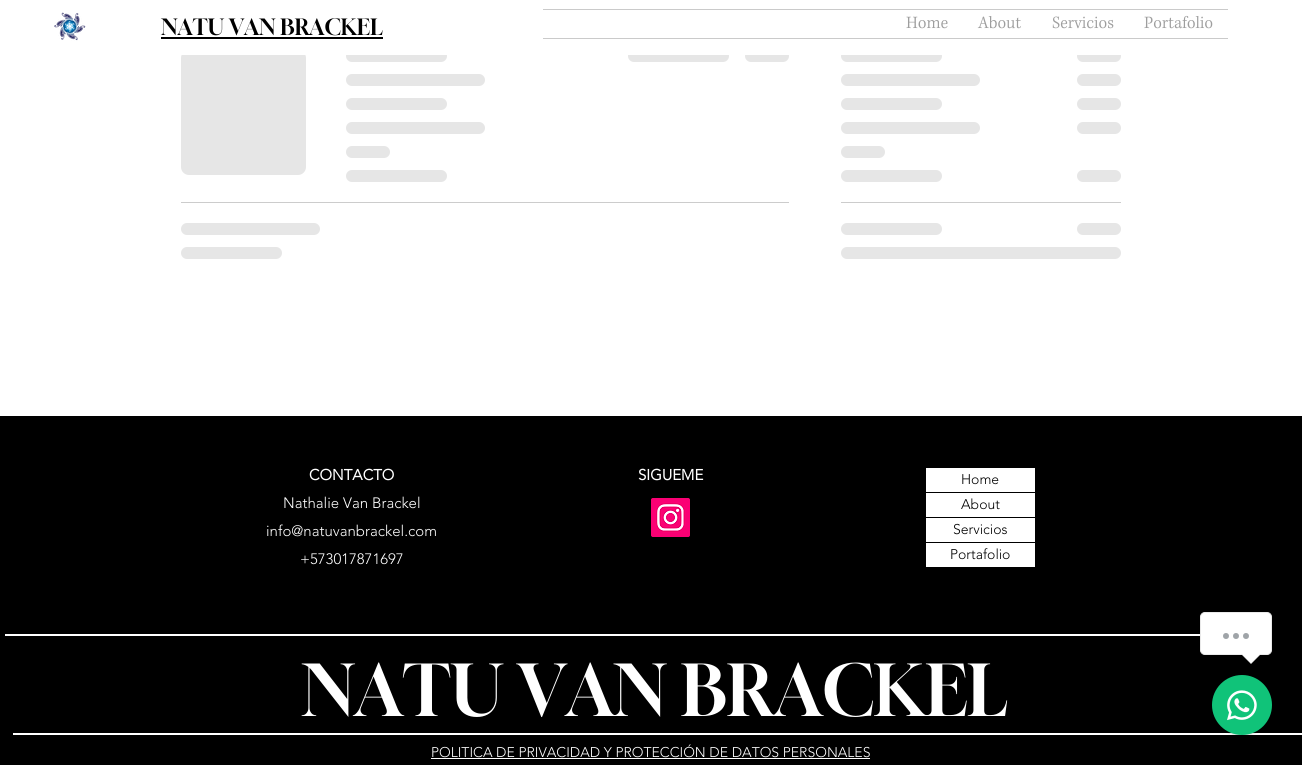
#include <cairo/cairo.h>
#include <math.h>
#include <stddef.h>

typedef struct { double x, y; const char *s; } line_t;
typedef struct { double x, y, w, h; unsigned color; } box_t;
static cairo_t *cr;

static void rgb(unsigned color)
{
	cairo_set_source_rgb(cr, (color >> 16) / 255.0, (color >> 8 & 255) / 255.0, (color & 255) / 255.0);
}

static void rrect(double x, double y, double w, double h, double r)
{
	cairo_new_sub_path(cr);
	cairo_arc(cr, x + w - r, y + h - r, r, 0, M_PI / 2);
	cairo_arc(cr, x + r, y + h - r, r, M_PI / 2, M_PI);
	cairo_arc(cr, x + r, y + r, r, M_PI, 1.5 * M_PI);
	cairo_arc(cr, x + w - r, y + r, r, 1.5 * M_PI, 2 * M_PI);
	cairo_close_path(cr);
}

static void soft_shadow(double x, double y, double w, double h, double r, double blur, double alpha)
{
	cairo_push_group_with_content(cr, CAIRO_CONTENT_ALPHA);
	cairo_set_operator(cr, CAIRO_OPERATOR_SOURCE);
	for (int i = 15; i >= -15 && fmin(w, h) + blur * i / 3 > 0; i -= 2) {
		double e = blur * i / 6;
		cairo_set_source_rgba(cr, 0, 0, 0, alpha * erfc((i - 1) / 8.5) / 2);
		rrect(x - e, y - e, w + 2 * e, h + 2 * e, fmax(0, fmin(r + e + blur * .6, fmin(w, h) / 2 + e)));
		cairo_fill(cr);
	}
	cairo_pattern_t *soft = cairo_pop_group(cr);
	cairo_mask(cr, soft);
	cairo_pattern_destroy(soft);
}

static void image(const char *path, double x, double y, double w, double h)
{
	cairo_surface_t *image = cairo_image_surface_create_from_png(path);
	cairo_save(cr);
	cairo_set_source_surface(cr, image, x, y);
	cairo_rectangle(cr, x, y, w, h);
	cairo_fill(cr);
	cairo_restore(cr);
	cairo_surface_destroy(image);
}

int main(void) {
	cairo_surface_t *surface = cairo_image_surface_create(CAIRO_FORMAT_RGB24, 1302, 765);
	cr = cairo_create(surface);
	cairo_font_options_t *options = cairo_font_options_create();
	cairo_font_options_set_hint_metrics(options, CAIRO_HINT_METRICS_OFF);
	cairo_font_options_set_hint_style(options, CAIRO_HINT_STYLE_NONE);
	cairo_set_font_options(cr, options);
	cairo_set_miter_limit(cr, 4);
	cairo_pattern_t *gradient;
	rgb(0xffffff);
	cairo_paint(cr);
	image("img/1.png", 54, 12, 32, 29);
	rgb(0xcacaca);
	cairo_rectangle(cr, 543, 9, 685, 1);
	cairo_fill(cr);
	cairo_rectangle(cr, 543, 38, 685, 1);
	cairo_fill(cr);
	image("img/2.png", 906, 16, 42, 13);
	image("img/3.png", 977, 16, 44, 13);
	image("img/4.png", 1052, 16, 62, 13);
	image("img/5.png", 1144, 15, 69, 14);
	rgb(0x000000);
	cairo_rectangle(cr, 161, 37, 222, 2);
	cairo_fill(cr);
	gradient = cairo_pattern_create_linear(181, 113, 681, 112);
	cairo_pattern_add_color_stop_rgba(gradient, 0.25, 0.902, 0.902, 0.902, 1);
	cairo_pattern_add_color_stop_rgba(gradient, 0.37, 0.8, 0.8, 0.8, 1);
	cairo_pattern_add_color_stop_rgba(gradient, 0.63, 0.902, 0.902, 0.902, 1);
	cairo_set_source(cr, gradient);
	cairo_pattern_destroy(gradient);
	rrect(181, 50, 125, 125, 8);
	cairo_fill(cr);
	gradient = cairo_pattern_create_linear(346, 56, 750, 56);
	cairo_pattern_add_color_stop_rgba(gradient, 0.25, 0.902, 0.902, 0.902, 1);
	cairo_pattern_add_color_stop_rgba(gradient, 0.37, 0.8, 0.8, 0.8, 1);
	cairo_pattern_add_color_stop_rgba(gradient, 0.63, 0.902, 0.902, 0.902, 1);
	cairo_set_source(cr, gradient);
	cairo_pattern_destroy(gradient);
	rrect(346, 50, 101, 12, 6);
	cairo_fill(cr);
	gradient = cairo_pattern_create_linear(628, 56, 1032, 56);
	cairo_pattern_add_color_stop_rgba(gradient, 0.25, 0.902, 0.902, 0.902, 1);
	cairo_pattern_add_color_stop_rgba(gradient, 0.37, 0.8, 0.8, 0.8, 1);
	cairo_pattern_add_color_stop_rgba(gradient, 0.63, 0.902, 0.902, 0.902, 1);
	cairo_set_source(cr, gradient);
	cairo_pattern_destroy(gradient);
	rrect(628, 50, 101, 12, 6);
	cairo_fill(cr);
	gradient = cairo_pattern_create_linear(745, 56, 921, 56);
	cairo_pattern_add_color_stop_rgba(gradient, 0.25, 0.902, 0.902, 0.902, 1);
	cairo_pattern_add_color_stop_rgba(gradient, 0.37, 0.8, 0.8, 0.8, 1);
	cairo_pattern_add_color_stop_rgba(gradient, 0.63, 0.902, 0.902, 0.902, 1);
	cairo_set_source(cr, gradient);
	cairo_pattern_destroy(gradient);
	rrect(745, 50, 44, 12, 6);
	cairo_fill(cr);
	gradient = cairo_pattern_create_linear(841, 56, 1245, 56);
	cairo_pattern_add_color_stop_rgba(gradient, 0.25, 0.902, 0.902, 0.902, 1);
	cairo_pattern_add_color_stop_rgba(gradient, 0.37, 0.8, 0.8, 0.8, 1);
	cairo_pattern_add_color_stop_rgba(gradient, 0.63, 0.902, 0.902, 0.902, 1);
	cairo_set_source(cr, gradient);
	cairo_pattern_destroy(gradient);
	rrect(841, 50, 101, 12, 6);
	cairo_fill(cr);
	gradient = cairo_pattern_create_linear(1077, 56, 1253, 56);
	cairo_pattern_add_color_stop_rgba(gradient, 0.25, 0.902, 0.902, 0.902, 1);
	cairo_pattern_add_color_stop_rgba(gradient, 0.37, 0.8, 0.8, 0.8, 1);
	cairo_pattern_add_color_stop_rgba(gradient, 0.63, 0.902, 0.902, 0.902, 1);
	cairo_set_source(cr, gradient);
	cairo_pattern_destroy(gradient);
	rrect(1077, 50, 44, 12, 6);
	cairo_fill(cr);
	rgb(0xffffff);
	cairo_rectangle(cr, 181, 50, 940, 5);
	cairo_fill(cr);
	gradient = cairo_pattern_create_linear(346, 80, 902, 80);
	cairo_pattern_add_color_stop_rgba(gradient, 0.25, 0.902, 0.902, 0.902, 1);
	cairo_pattern_add_color_stop_rgba(gradient, 0.37, 0.8, 0.8, 0.8, 1);
	cairo_pattern_add_color_stop_rgba(gradient, 0.63, 0.902, 0.902, 0.902, 1);
	cairo_set_source(cr, gradient);
	cairo_pattern_destroy(gradient);
	rrect(346, 74, 139, 12, 6);
	cairo_fill(cr);
	gradient = cairo_pattern_create_linear(346, 104, 750, 104);
	cairo_pattern_add_color_stop_rgba(gradient, 0.25, 0.902, 0.902, 0.902, 1);
	cairo_pattern_add_color_stop_rgba(gradient, 0.37, 0.8, 0.8, 0.8, 1);
	cairo_pattern_add_color_stop_rgba(gradient, 0.63, 0.902, 0.902, 0.902, 1);
	cairo_set_source(cr, gradient);
	cairo_pattern_destroy(gradient);
	rrect(346, 98, 101, 12, 6);
	cairo_fill(cr);
	gradient = cairo_pattern_create_linear(346, 128, 902, 128);
	cairo_pattern_add_color_stop_rgba(gradient, 0.25, 0.902, 0.902, 0.902, 1);
	cairo_pattern_add_color_stop_rgba(gradient, 0.37, 0.8, 0.8, 0.8, 1);
	cairo_pattern_add_color_stop_rgba(gradient, 0.63, 0.902, 0.902, 0.902, 1);
	cairo_set_source(cr, gradient);
	cairo_pattern_destroy(gradient);
	rrect(346, 122, 139, 12, 6);
	cairo_fill(cr);
	gradient = cairo_pattern_create_linear(346, 152, 522, 152);
	cairo_pattern_add_color_stop_rgba(gradient, 0.25, 0.902, 0.902, 0.902, 1);
	cairo_pattern_add_color_stop_rgba(gradient, 0.37, 0.8, 0.8, 0.8, 1);
	cairo_pattern_add_color_stop_rgba(gradient, 0.63, 0.902, 0.902, 0.902, 1);
	cairo_set_source(cr, gradient);
	cairo_pattern_destroy(gradient);
	rrect(346, 146, 44, 12, 6);
	cairo_fill(cr);
	gradient = cairo_pattern_create_linear(346, 176, 750, 176);
	cairo_pattern_add_color_stop_rgba(gradient, 0.25, 0.902, 0.902, 0.902, 1);
	cairo_pattern_add_color_stop_rgba(gradient, 0.37, 0.8, 0.8, 0.8, 1);
	cairo_pattern_add_color_stop_rgba(gradient, 0.63, 0.902, 0.902, 0.902, 1);
	cairo_set_source(cr, gradient);
	cairo_pattern_destroy(gradient);
	rrect(346, 170, 101, 12, 6);
	cairo_fill(cr);
	rgb(0xcccccc);
	cairo_rectangle(cr, 181, 202, 608, 1);
	cairo_fill(cr);
	gradient = cairo_pattern_create_linear(181, 229, 737, 229);
	cairo_pattern_add_color_stop_rgba(gradient, 0.25, 0.902, 0.902, 0.902, 1);
	cairo_pattern_add_color_stop_rgba(gradient, 0.37, 0.8, 0.8, 0.8, 1);
	cairo_pattern_add_color_stop_rgba(gradient, 0.63, 0.902, 0.902, 0.902, 1);
	cairo_set_source(cr, gradient);
	cairo_pattern_destroy(gradient);
	rrect(181, 223, 139, 12, 6);
	cairo_fill(cr);
	gradient = cairo_pattern_create_linear(181, 253, 585, 253);
	cairo_pattern_add_color_stop_rgba(gradient, 0.25, 0.902, 0.902, 0.902, 1);
	cairo_pattern_add_color_stop_rgba(gradient, 0.37, 0.8, 0.8, 0.8, 1);
	cairo_pattern_add_color_stop_rgba(gradient, 0.63, 0.902, 0.902, 0.902, 1);
	cairo_set_source(cr, gradient);
	cairo_pattern_destroy(gradient);
	rrect(181, 247, 101, 12, 6);
	cairo_fill(cr);
	gradient = cairo_pattern_create_linear(841, 80, 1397, 80);
	cairo_pattern_add_color_stop_rgba(gradient, 0.25, 0.902, 0.902, 0.902, 1);
	cairo_pattern_add_color_stop_rgba(gradient, 0.37, 0.8, 0.8, 0.8, 1);
	cairo_pattern_add_color_stop_rgba(gradient, 0.63, 0.902, 0.902, 0.902, 1);
	cairo_set_source(cr, gradient);
	cairo_pattern_destroy(gradient);
	rrect(841, 74, 139, 12, 6);
	cairo_fill(cr);
	gradient = cairo_pattern_create_linear(1077, 80, 1253, 80);
	cairo_pattern_add_color_stop_rgba(gradient, 0.25, 0.902, 0.902, 0.902, 1);
	cairo_pattern_add_color_stop_rgba(gradient, 0.37, 0.8, 0.8, 0.8, 1);
	cairo_pattern_add_color_stop_rgba(gradient, 0.63, 0.902, 0.902, 0.902, 1);
	cairo_set_source(cr, gradient);
	cairo_pattern_destroy(gradient);
	rrect(1077, 74, 44, 12, 6);
	cairo_fill(cr);
	gradient = cairo_pattern_create_linear(841, 104, 1245, 104);
	cairo_pattern_add_color_stop_rgba(gradient, 0.25, 0.902, 0.902, 0.902, 1);
	cairo_pattern_add_color_stop_rgba(gradient, 0.37, 0.8, 0.8, 0.8, 1);
	cairo_pattern_add_color_stop_rgba(gradient, 0.63, 0.902, 0.902, 0.902, 1);
	cairo_set_source(cr, gradient);
	cairo_pattern_destroy(gradient);
	rrect(841, 98, 101, 12, 6);
	cairo_fill(cr);
	gradient = cairo_pattern_create_linear(1077, 104, 1253, 104);
	cairo_pattern_add_color_stop_rgba(gradient, 0.25, 0.902, 0.902, 0.902, 1);
	cairo_pattern_add_color_stop_rgba(gradient, 0.37, 0.8, 0.8, 0.8, 1);
	cairo_pattern_add_color_stop_rgba(gradient, 0.63, 0.902, 0.902, 0.902, 1);
	cairo_set_source(cr, gradient);
	cairo_pattern_destroy(gradient);
	rrect(1077, 98, 44, 12, 6);
	cairo_fill(cr);
	gradient = cairo_pattern_create_linear(841, 128, 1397, 128);
	cairo_pattern_add_color_stop_rgba(gradient, 0.25, 0.902, 0.902, 0.902, 1);
	cairo_pattern_add_color_stop_rgba(gradient, 0.37, 0.8, 0.8, 0.8, 1);
	cairo_pattern_add_color_stop_rgba(gradient, 0.63, 0.902, 0.902, 0.902, 1);
	cairo_set_source(cr, gradient);
	cairo_pattern_destroy(gradient);
	rrect(841, 122, 139, 12, 6);
	cairo_fill(cr);
	gradient = cairo_pattern_create_linear(1077, 128, 1253, 128);
	cairo_pattern_add_color_stop_rgba(gradient, 0.25, 0.902, 0.902, 0.902, 1);
	cairo_pattern_add_color_stop_rgba(gradient, 0.37, 0.8, 0.8, 0.8, 1);
	cairo_pattern_add_color_stop_rgba(gradient, 0.63, 0.902, 0.902, 0.902, 1);
	cairo_set_source(cr, gradient);
	cairo_pattern_destroy(gradient);
	rrect(1077, 122, 44, 12, 6);
	cairo_fill(cr);
	gradient = cairo_pattern_create_linear(841, 152, 1017, 152);
	cairo_pattern_add_color_stop_rgba(gradient, 0.25, 0.902, 0.902, 0.902, 1);
	cairo_pattern_add_color_stop_rgba(gradient, 0.37, 0.8, 0.8, 0.8, 1);
	cairo_pattern_add_color_stop_rgba(gradient, 0.63, 0.902, 0.902, 0.902, 1);
	cairo_set_source(cr, gradient);
	cairo_pattern_destroy(gradient);
	rrect(841, 146, 44, 12, 6);
	cairo_fill(cr);
	gradient = cairo_pattern_create_linear(841, 176, 1245, 176);
	cairo_pattern_add_color_stop_rgba(gradient, 0.25, 0.902, 0.902, 0.902, 1);
	cairo_pattern_add_color_stop_rgba(gradient, 0.37, 0.8, 0.8, 0.8, 1);
	cairo_pattern_add_color_stop_rgba(gradient, 0.63, 0.902, 0.902, 0.902, 1);
	cairo_set_source(cr, gradient);
	cairo_pattern_destroy(gradient);
	rrect(841, 170, 101, 12, 6);
	cairo_fill(cr);
	gradient = cairo_pattern_create_linear(1077, 176, 1253, 176);
	cairo_pattern_add_color_stop_rgba(gradient, 0.25, 0.902, 0.902, 0.902, 1);
	cairo_pattern_add_color_stop_rgba(gradient, 0.37, 0.8, 0.8, 0.8, 1);
	cairo_pattern_add_color_stop_rgba(gradient, 0.63, 0.902, 0.902, 0.902, 1);
	cairo_set_source(cr, gradient);
	cairo_pattern_destroy(gradient);
	rrect(1077, 170, 44, 12, 6);
	cairo_fill(cr);
	rgb(0xcccccc);
	cairo_rectangle(cr, 841, 202, 280, 1);
	cairo_fill(cr);
	gradient = cairo_pattern_create_linear(841, 229, 1245, 229);
	cairo_pattern_add_color_stop_rgba(gradient, 0.25, 0.902, 0.902, 0.902, 1);
	cairo_pattern_add_color_stop_rgba(gradient, 0.37, 0.8, 0.8, 0.8, 1);
	cairo_pattern_add_color_stop_rgba(gradient, 0.63, 0.902, 0.902, 0.902, 1);
	cairo_set_source(cr, gradient);
	cairo_pattern_destroy(gradient);
	rrect(841, 223, 101, 12, 6);
	cairo_fill(cr);
	gradient = cairo_pattern_create_linear(1077, 229, 1253, 229);
	cairo_pattern_add_color_stop_rgba(gradient, 0.25, 0.902, 0.902, 0.902, 1);
	cairo_pattern_add_color_stop_rgba(gradient, 0.37, 0.8, 0.8, 0.8, 1);
	cairo_pattern_add_color_stop_rgba(gradient, 0.63, 0.902, 0.902, 0.902, 1);
	cairo_set_source(cr, gradient);
	cairo_pattern_destroy(gradient);
	rrect(1077, 223, 44, 12, 6);
	cairo_fill(cr);
	gradient = cairo_pattern_create_linear(841, 253, 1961, 253);
	cairo_pattern_add_color_stop_rgba(gradient, 0.25, 0.902, 0.902, 0.902, 1);
	cairo_pattern_add_color_stop_rgba(gradient, 0.37, 0.8, 0.8, 0.8, 1);
	cairo_pattern_add_color_stop_rgba(gradient, 0.63, 0.902, 0.902, 0.902, 1);
	cairo_set_source(cr, gradient);
	cairo_pattern_destroy(gradient);
	rrect(841, 247, 280, 12, 6);
	cairo_fill(cr);
	{
		static const box_t items[] = {
			{0, 416, 1302, 349, 0x000000},
			{926, 468, 109, 24, 0xffffff},
			{926, 493, 109, 24, 0xffffff},
			{926, 518, 109, 24, 0xffffff},
			{926, 543, 109, 24, 0xffffff},
		};
		for (size_t i = 0; i < sizeof items / sizeof *items; i++) {
			rgb(items[i].color);
			cairo_rectangle(cr, items[i].x, items[i].y, items[i].w, items[i].h);
			cairo_fill(cr);
		}
	}
	image("img/6.png", 651, 498, 39, 39);
	{
		static const box_t items[] = {
			{5, 634, 1195, 2, 0xffffff},
			{13, 733, 1289, 2, 0xffffff},
			{431, 758, 439, 1, 0xffffff},
		};
		for (size_t i = 0; i < sizeof items / sizeof *items; i++) {
			rgb(items[i].color);
			cairo_rectangle(cr, items[i].x, items[i].y, items[i].w, items[i].h);
			cairo_fill(cr);
		}
	}
	rrect(1200.5, 612.5, 71, 42, 4.5);
	cairo_fill_preserve(cr);
	rgb(0xe9e9e9);
	cairo_set_line_width(cr, 1);
	cairo_stroke(cr);
	rgb(0x9fa4a8);
	cairo_arc(cr, 1226, 636, 3, 0, 2 * M_PI);
	cairo_fill(cr);
	cairo_arc(cr, 1236, 636, 3, 0, 2 * M_PI);
	cairo_fill(cr);
	cairo_arc(cr, 1246, 636, 3, 0, 2 * M_PI);
	cairo_fill(cr);
	rgb(0xe9e9e9);
	cairo_new_path(cr);
	cairo_move_to(cr, 1241, 654);
	cairo_line_to(cr, 1261, 654);
	cairo_line_to(cr, 1251, 664);
	cairo_close_path(cr);
	cairo_fill(cr);
	rgb(0xffffff);
	cairo_new_path(cr);
	cairo_move_to(cr, 1242, 654);
	cairo_line_to(cr, 1260, 654);
	cairo_line_to(cr, 1251, 663);
	cairo_close_path(cr);
	cairo_fill(cr);
	rgb(0x000000);
	soft_shadow(1212, 676, 60, 60, 30, 1, 0.15);
	rgb(0x10c379);
	cairo_arc(cr, 1242, 705, 30, 0, 2 * M_PI);
	cairo_fill(cr);
	image("img/7.png", 1227, 690, 30, 31);
	cairo_select_font_face(cr, "Gloock", CAIRO_FONT_SLANT_NORMAL, CAIRO_FONT_WEIGHT_NORMAL);
	cairo_set_font_size(cr, 22);
	rgb(0x000000);
	cairo_move_to(cr, 161, 35);
	cairo_show_text(cr, "NATU VAN BRACKEL");
	cairo_select_font_face(cr, "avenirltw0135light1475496", CAIRO_FONT_SLANT_NORMAL, CAIRO_FONT_WEIGHT_BOLD);
	cairo_set_font_size(cr, 15);
	rgb(0xffffff);
	cairo_move_to(cr, 309, 480);
	cairo_show_text(cr, "CONTACTO");
	cairo_select_font_face(cr, "avenirltw0135light1475496 Light", CAIRO_FONT_SLANT_NORMAL, CAIRO_FONT_WEIGHT_NORMAL);
	{
		static const line_t items[] = {
			{283, 508, "Nathalie Van Brackel"},
			{266, 536, "info@natuvanbrackel.com"},
			{300, 564, "+573017871697"},
		};
		for (size_t i = 0; i < sizeof items / sizeof *items; i++) {
			cairo_move_to(cr, items[i].x, items[i].y);
			cairo_show_text(cr, items[i].s);
		}
	}
	cairo_select_font_face(cr, "avenirltw0135light1475496", CAIRO_FONT_SLANT_NORMAL, CAIRO_FONT_WEIGHT_BOLD);
	cairo_move_to(cr, 638, 480);
	cairo_show_text(cr, "SIGUEME");
	cairo_select_font_face(cr, "avenirltw0135light1475496 Light", CAIRO_FONT_SLANT_NORMAL, CAIRO_FONT_WEIGHT_NORMAL);
	cairo_set_font_size(cr, 14);
	rgb(0x000000);
	{
		static const line_t items[] = {
			{961, 484, "Home"},
			{961, 509, "About"},
			{953, 534, "Servicios"},
			{950, 559, "Portafolio"},
		};
		for (size_t i = 0; i < sizeof items / sizeof *items; i++) {
			cairo_move_to(cr, items[i].x, items[i].y);
			cairo_show_text(cr, items[i].s);
		}
	}
	cairo_select_font_face(cr, "Gloock", CAIRO_FONT_SLANT_NORMAL, CAIRO_FONT_WEIGHT_NORMAL);
	cairo_set_font_size(cr, 70);
	rgb(0xffffff);
	cairo_move_to(cr, 302, 716);
	cairo_show_text(cr, "NATU VAN BRACKEL");
	cairo_select_font_face(cr, "avenirltw0135light1475496 Light", CAIRO_FONT_SLANT_NORMAL, CAIRO_FONT_WEIGHT_NORMAL);
	cairo_set_font_size(cr, 14);
	cairo_move_to(cr, 431, 757);
	cairo_show_text(cr, "POLITICA DE PRIVACIDAD Y PROTECCIÓN DE DATOS PERSONALES");
	cairo_surface_write_to_png(surface, "page.png");
	cairo_font_options_destroy(options);
	cairo_destroy(cr);
	cairo_surface_destroy(surface);
	return 0;
}
